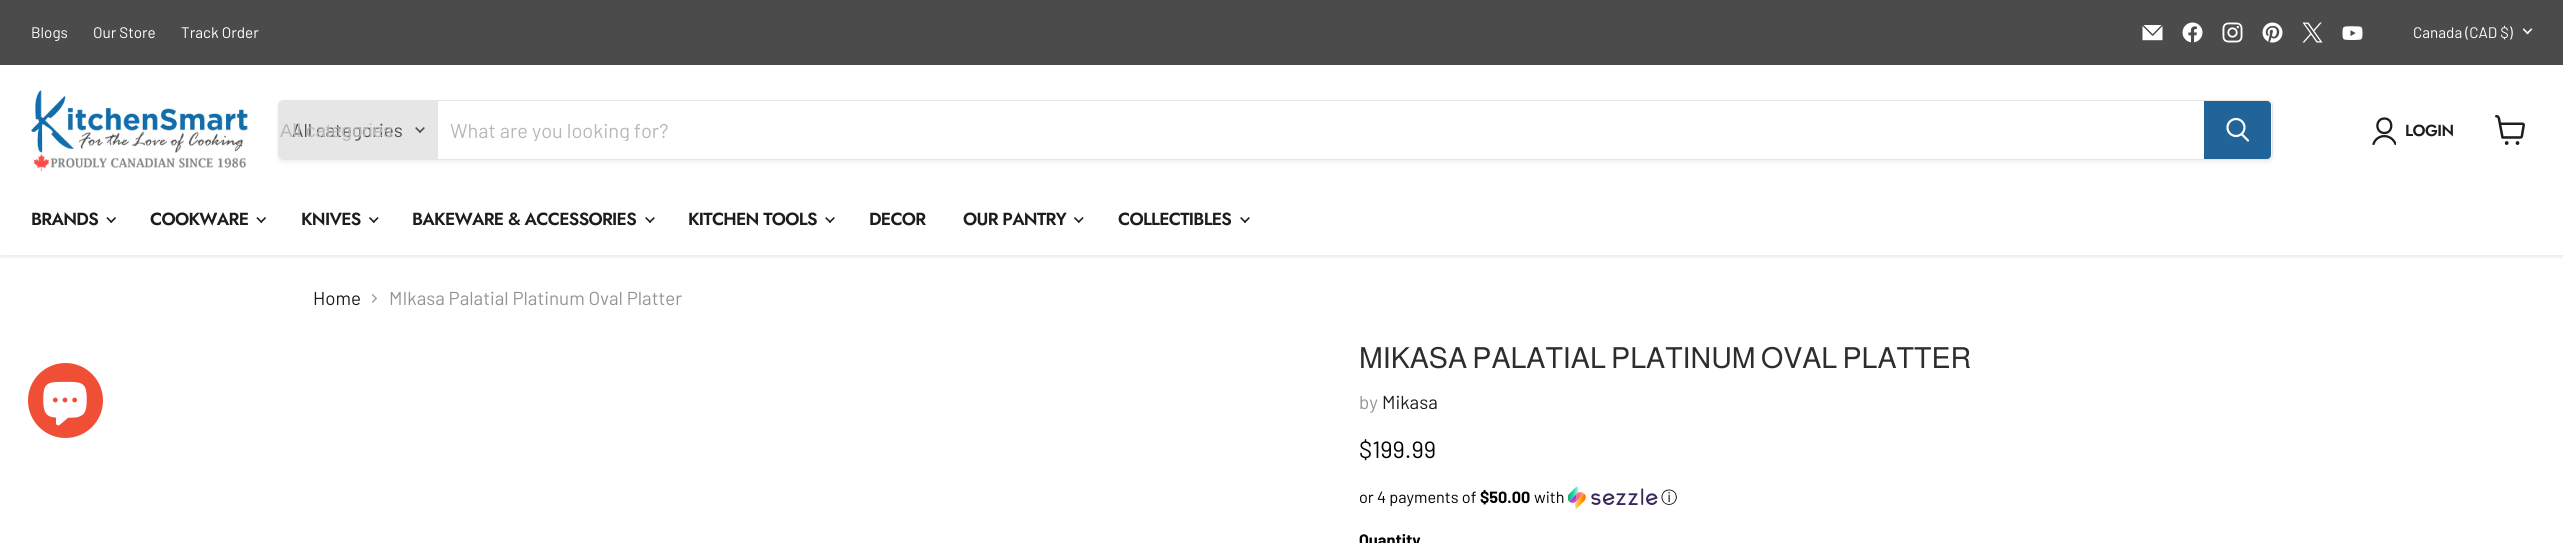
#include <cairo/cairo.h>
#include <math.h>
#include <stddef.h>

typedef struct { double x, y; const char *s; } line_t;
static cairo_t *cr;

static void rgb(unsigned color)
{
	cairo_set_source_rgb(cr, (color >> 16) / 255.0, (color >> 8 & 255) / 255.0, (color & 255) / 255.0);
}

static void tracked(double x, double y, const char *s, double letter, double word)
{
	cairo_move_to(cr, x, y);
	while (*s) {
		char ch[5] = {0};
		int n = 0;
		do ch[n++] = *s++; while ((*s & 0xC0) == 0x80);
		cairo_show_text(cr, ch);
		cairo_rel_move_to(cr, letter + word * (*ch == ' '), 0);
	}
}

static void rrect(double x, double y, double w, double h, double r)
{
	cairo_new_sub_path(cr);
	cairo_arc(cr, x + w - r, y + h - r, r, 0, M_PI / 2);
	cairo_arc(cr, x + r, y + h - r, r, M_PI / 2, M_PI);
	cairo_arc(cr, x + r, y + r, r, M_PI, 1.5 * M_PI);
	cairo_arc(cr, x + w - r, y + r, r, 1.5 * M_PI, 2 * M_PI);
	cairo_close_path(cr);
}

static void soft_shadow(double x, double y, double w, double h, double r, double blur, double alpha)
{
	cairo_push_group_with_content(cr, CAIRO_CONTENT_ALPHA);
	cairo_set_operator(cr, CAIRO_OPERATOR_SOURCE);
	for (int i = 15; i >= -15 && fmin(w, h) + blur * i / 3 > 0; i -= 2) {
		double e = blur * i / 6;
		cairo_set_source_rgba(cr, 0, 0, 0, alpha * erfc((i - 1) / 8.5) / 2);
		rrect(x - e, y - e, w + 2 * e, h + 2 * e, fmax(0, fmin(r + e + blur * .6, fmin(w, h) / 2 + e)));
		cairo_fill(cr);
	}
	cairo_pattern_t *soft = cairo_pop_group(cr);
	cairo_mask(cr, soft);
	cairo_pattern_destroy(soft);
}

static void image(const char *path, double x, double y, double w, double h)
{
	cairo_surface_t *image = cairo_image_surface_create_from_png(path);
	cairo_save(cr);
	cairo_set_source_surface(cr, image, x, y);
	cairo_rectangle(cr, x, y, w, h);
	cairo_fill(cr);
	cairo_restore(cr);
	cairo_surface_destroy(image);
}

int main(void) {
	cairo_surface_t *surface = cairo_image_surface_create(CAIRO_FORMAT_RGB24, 2563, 543);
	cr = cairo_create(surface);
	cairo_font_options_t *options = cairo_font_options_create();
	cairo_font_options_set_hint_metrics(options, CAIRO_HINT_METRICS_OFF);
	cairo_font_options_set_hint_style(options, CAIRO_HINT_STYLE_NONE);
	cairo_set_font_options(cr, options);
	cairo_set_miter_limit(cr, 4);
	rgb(0xffffff);
	cairo_paint(cr);
	cairo_save(cr);
	cairo_rectangle(cr, 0, 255, 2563, 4);
	cairo_clip(cr);
	rgb(0x808080);
	soft_shadow(0, 66, 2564, 190, 0, 2.5, 0.25);
	cairo_restore(cr);
	rgb(0x4b4b4b);
	cairo_rectangle(cr, 0, 0, 2563, 65);
	cairo_fill(cr);
	image("img/1.png", 2142, 25, 21, 16);
	image("img/2.png", 2182, 22, 21, 21);
	image("img/3.png", 2222, 22, 21, 21);
	image("img/4.png", 2262, 22, 21, 21);
	image("img/5.png", 2302, 22, 21, 21);
	image("img/6.png", 2342, 26, 21, 14);
	image("img/7.png", 2523, 28, 10, 7);
	image("img/8.png", 31, 90, 217, 82);
	cairo_save(cr);
	cairo_set_fill_rule(cr, CAIRO_FILL_RULE_EVEN_ODD);
	cairo_new_path(cr);
	cairo_move_to(cr, 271, 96);
	cairo_line_to(cr, 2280, 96);
	cairo_line_to(cr, 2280, 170);
	cairo_line_to(cr, 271, 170);
	cairo_close_path(cr);
	cairo_move_to(cr, 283, 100);
	cairo_line_to(cr, 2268, 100);
	cairo_curve_to(cr, 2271, 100, 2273, 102, 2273, 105);
	cairo_line_to(cr, 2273, 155);
	cairo_curve_to(cr, 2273, 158, 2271, 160, 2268, 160);
	cairo_line_to(cr, 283, 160);
	cairo_curve_to(cr, 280, 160, 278, 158, 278, 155);
	cairo_line_to(cr, 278, 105);
	cairo_curve_to(cr, 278, 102, 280, 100, 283, 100);
	cairo_close_path(cr);
	cairo_clip(cr);
	rgb(0x808080);
	soft_shadow(278, 103, 1995, 60, 5, 2, 0.11);
	cairo_restore(cr);
	rrect(278.5, 100.5, 1994, 59, 4.5);
	cairo_set_source_rgba(cr, 0.502, 0.502, 0.502, 0.2);
	cairo_set_line_width(cr, 1);
	cairo_stroke(cr);
	rgb(0xe6e6e6);
	cairo_new_path(cr);
	cairo_move_to(cr, 283, 101);
	cairo_line_to(cr, 438, 101);
	cairo_line_to(cr, 438, 159);
	cairo_line_to(cr, 283, 159);
	cairo_curve_to(cr, 281, 159, 279, 157, 279, 155);
	cairo_line_to(cr, 279, 105);
	cairo_curve_to(cr, 279, 103, 281, 101, 283, 101);
	cairo_close_path(cr);
	cairo_fill(cr);
	image("img/9.png", 415, 127, 10, 6);
	rgb(0x216499);
	cairo_new_path(cr);
	cairo_move_to(cr, 2204.5, 101.5);
	cairo_line_to(cr, 2267, 101.5);
	cairo_curve_to(cr, 2269, 101.5, 2270.5, 103, 2270.5, 105);
	cairo_line_to(cr, 2270.5, 155);
	cairo_curve_to(cr, 2270.5, 157, 2269, 158.5, 2267, 158.5);
	cairo_line_to(cr, 2204.5, 158.5);
	cairo_close_path(cr);
	cairo_fill_preserve(cr);
	cairo_stroke(cr);
	cairo_new_path(cr);
	cairo_move_to(cr, 2248, 140.5);
	cairo_line_to(cr, 2242, 134.5);
	rgb(0xffffff);
	cairo_set_line_width(cr, 2.2);
	cairo_set_line_cap(cr, CAIRO_LINE_CAP_ROUND);
	cairo_stroke(cr);
	cairo_arc(cr, 2236, 127.5, 8.5, 0, 2 * M_PI);
	cairo_set_line_cap(cr, CAIRO_LINE_CAP_BUTT);
	cairo_stroke(cr);
	cairo_new_path(cr);
	cairo_move_to(cr, 2384.5, 133);
	cairo_curve_to(cr, 2393.5, 133, 2393.5, 118.5, 2384.5, 118.5);
	cairo_curve_to(cr, 2375, 118.5, 2375, 133, 2384.5, 133);
	cairo_close_path(cr);
	rgb(0x1d1d1d);
	cairo_set_line_width(cr, 2.3);
	cairo_set_line_cap(cr, CAIRO_LINE_CAP_ROUND);
	cairo_set_line_join(cr, CAIRO_LINE_JOIN_ROUND);
	cairo_stroke(cr);
	cairo_save(cr);
	cairo_rectangle(cr, 2371, 116, 25, 29);
	cairo_clip(cr);
	cairo_new_path(cr);
	cairo_move_to(cr, 2395.5, 144);
	cairo_curve_to(cr, 2391.5, 133.5, 2377, 133.5, 2373.5, 144);
	cairo_stroke(cr);
	cairo_restore(cr);
	image("img/10.png", 2495, 115, 30, 30);
	image("img/11.png", 106, 217, 10, 6);
	image("img/11.png", 256, 217, 10, 6);
	image("img/12.png", 369, 217, 10, 6);
	image("img/13.png", 645, 217, 10, 6);
	image("img/13.png", 825, 217, 10, 6);
	image("img/12.png", 1074, 217, 10, 6);
	image("img/13.png", 1240, 217, 10, 6);
	rgb(0xf04f36);
	cairo_arc(cr, 65.5, 400.5, 37.5, 0, 2 * M_PI);
	cairo_fill(cr);
	image("img/14.png", 43, 381, 44, 45);
	image("img/15.png", 372, 294, 5, 9);
	image("img/16.png", 1568, 486, 90, 23);
	cairo_select_font_face(cr, "Barlow", CAIRO_FONT_SLANT_NORMAL, CAIRO_FONT_WEIGHT_NORMAL);
	cairo_set_font_size(cr, 15.25);
	rgb(0xffffff);
	{
		static const line_t items[] = {
			{31, 38, "Blogs"},
			{93, 38, "Our Store"},
			{181, 38, "Track Order"},
			{2413, 38, "Canada (CAD $)"},
		};
		for (size_t i = 0; i < sizeof items / sizeof *items; i++) {
			cairo_move_to(cr, items[i].x, items[i].y);
			cairo_show_text(cr, items[i].s);
		}
	}
	cairo_set_font_size(cr, 18.75);
	rgb(0x4d4d4d);
	cairo_move_to(cr, 292, 137);
	cairo_show_text(cr, "All categories");
	cairo_select_font_face(cr, "Liberation Sans", CAIRO_FONT_SLANT_NORMAL, CAIRO_FONT_WEIGHT_NORMAL);
	rgb(0xb8b8b8);
	cairo_move_to(cr, 280, 137);
	cairo_show_text(cr, "All categories");
	cairo_save(cr);
	cairo_rectangle(cr, 450, 118, 1741, 23);
	cairo_clip(cr);
	cairo_select_font_face(cr, "Barlow", CAIRO_FONT_SLANT_NORMAL, CAIRO_FONT_WEIGHT_NORMAL);
	cairo_set_font_size(cr, 20);
	cairo_move_to(cr, 450, 138);
	cairo_show_text(cr, "What are you looking for?");
	cairo_restore(cr);
	cairo_select_font_face(cr, "Jost SemiBold", CAIRO_FONT_SLANT_NORMAL, CAIRO_FONT_WEIGHT_NORMAL);
	cairo_set_font_size(cr, 16);
	rgb(0x1d1d1d);
	tracked(2405, 136, "LOGIN", -0.5, 0);
	cairo_set_font_size(cr, 17.5);
	{
		static const line_t items[] = {
			{31, 225, "BRANDS"},
			{150, 225, "COOKWARE"},
			{301, 225, "KNIVES"},
			{412, 225, "BAKEWARE & ACCESSORIES"},
			{688, 225, "KITCHEN TOOLS"},
			{869, 225, "DECOR"},
			{963, 225, "OUR PANTRY"},
			{1118, 225, "COLLECTIBLES"},
		};
		for (size_t i = 0; i < sizeof items / sizeof *items; i++) {
			tracked(items[i].x, items[i].y, items[i].s, -0.7, 0);
		}
	}
	cairo_select_font_face(cr, "Barlow", CAIRO_FONT_SLANT_NORMAL, CAIRO_FONT_WEIGHT_NORMAL);
	cairo_set_font_size(cr, 18.75);
	cairo_move_to(cr, 313, 305);
	cairo_show_text(cr, "Home");
	rgb(0x949494);
	cairo_move_to(cr, 389, 305);
	cairo_show_text(cr, "MIkasa Palatial Platinum Oval Platter");
	cairo_select_font_face(cr, "Almarai", CAIRO_FONT_SLANT_NORMAL, CAIRO_FONT_WEIGHT_NORMAL);
	cairo_set_font_size(cr, 29.1);
	rgb(0x2d2d2d);
	cairo_move_to(cr, 1359, 368);
	cairo_show_text(cr, "MIKASA PALATIAL PLATINUM OVAL PLATTER");
	cairo_select_font_face(cr, "Barlow", CAIRO_FONT_SLANT_NORMAL, CAIRO_FONT_WEIGHT_NORMAL);
	cairo_set_font_size(cr, 18.75);
	rgb(0x949494);
	cairo_move_to(cr, 1359, 409);
	cairo_show_text(cr, "by");
	rgb(0x1d1d1d);
	cairo_move_to(cr, 1382, 409);
	cairo_show_text(cr, "Mikasa");
	cairo_set_font_size(cr, 23.5);
	rgb(0x000000);
	cairo_move_to(cr, 1359, 458);
	cairo_show_text(cr, "$199.99");
	cairo_set_font_size(cr, 16.25);
	cairo_move_to(cr, 1359, 503);
	cairo_show_text(cr, "or 4 payments of");
	cairo_select_font_face(cr, "Barlow", CAIRO_FONT_SLANT_NORMAL, CAIRO_FONT_WEIGHT_BOLD);
	cairo_move_to(cr, 1480, 503);
	cairo_show_text(cr, "$50.00");
	cairo_select_font_face(cr, "Barlow", CAIRO_FONT_SLANT_NORMAL, CAIRO_FONT_WEIGHT_NORMAL);
	cairo_move_to(cr, 1534, 503);
	cairo_show_text(cr, "with");
	cairo_select_font_face(cr, "WenQuanYi Zen Hei Medium", CAIRO_FONT_SLANT_NORMAL, CAIRO_FONT_WEIGHT_NORMAL);
	cairo_move_to(cr, 1661, 503);
	cairo_show_text(cr, "ⓘ");
	cairo_select_font_face(cr, "Barlow", CAIRO_FONT_SLANT_NORMAL, CAIRO_FONT_WEIGHT_BOLD);
	cairo_set_font_size(cr, 16.5);
	cairo_move_to(cr, 1359, 546);
	cairo_show_text(cr, "Quantity");
	cairo_surface_write_to_png(surface, "page.png");
	cairo_font_options_destroy(options);
	cairo_destroy(cr);
	cairo_surface_destroy(surface);
	return 0;
}
